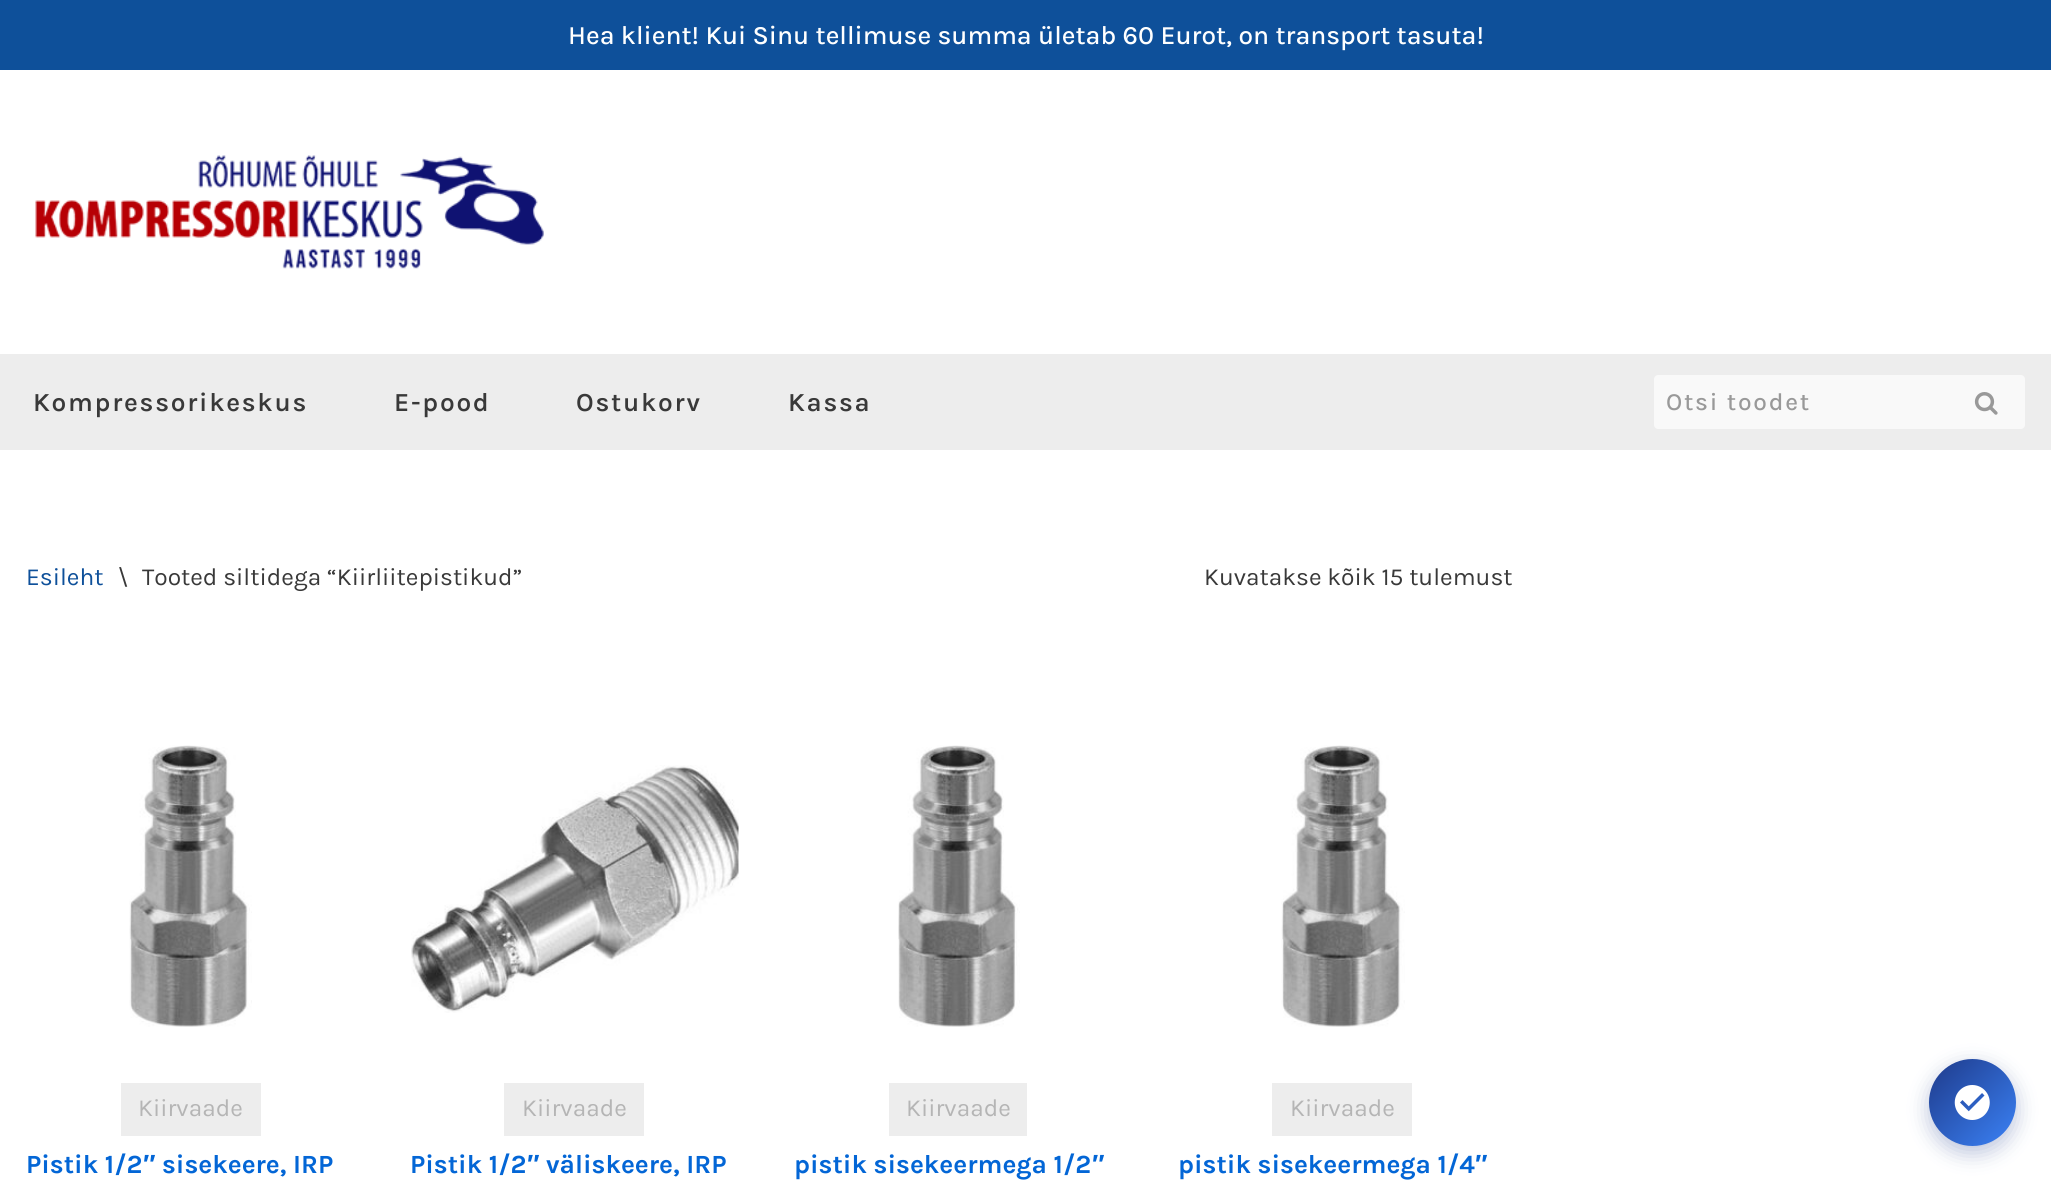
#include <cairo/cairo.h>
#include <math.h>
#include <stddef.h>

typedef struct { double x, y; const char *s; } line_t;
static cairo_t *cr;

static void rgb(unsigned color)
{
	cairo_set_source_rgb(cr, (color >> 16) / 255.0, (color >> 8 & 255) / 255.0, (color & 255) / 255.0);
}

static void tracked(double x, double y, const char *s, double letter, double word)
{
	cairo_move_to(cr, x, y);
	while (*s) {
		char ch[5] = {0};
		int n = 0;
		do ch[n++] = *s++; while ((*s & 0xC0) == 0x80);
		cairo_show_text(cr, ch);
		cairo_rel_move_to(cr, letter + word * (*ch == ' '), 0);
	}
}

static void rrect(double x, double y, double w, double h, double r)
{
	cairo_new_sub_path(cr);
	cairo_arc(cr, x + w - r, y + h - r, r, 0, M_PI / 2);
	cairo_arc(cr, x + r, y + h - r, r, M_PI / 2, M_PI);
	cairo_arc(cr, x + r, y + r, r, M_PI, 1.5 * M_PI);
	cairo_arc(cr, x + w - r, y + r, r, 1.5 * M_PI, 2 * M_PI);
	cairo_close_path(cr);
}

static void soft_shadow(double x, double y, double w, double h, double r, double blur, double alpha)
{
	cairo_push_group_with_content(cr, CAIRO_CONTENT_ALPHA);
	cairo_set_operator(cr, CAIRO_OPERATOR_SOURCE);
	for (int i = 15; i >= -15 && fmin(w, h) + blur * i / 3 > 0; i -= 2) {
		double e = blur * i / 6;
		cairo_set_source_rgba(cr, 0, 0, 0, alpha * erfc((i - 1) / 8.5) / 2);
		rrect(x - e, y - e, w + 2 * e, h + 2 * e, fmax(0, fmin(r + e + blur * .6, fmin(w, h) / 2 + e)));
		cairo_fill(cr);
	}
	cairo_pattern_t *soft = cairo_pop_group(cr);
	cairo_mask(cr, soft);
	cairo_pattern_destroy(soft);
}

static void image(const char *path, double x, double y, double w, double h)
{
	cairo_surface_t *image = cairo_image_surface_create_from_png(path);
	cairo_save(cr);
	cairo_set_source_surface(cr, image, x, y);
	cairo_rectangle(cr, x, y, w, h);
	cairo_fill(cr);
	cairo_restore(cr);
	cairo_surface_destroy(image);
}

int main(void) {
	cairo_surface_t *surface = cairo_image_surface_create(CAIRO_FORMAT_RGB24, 2051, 1181);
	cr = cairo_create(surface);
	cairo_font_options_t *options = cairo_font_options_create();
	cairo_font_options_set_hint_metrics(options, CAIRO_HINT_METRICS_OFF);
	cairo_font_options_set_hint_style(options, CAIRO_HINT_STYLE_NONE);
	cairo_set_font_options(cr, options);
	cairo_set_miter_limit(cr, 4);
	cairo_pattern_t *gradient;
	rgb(0xffffff);
	cairo_paint(cr);
	rgb(0x0e509a);
	cairo_rectangle(cr, 0, 0, 2051, 70);
	cairo_fill(cr);
	image("img/1.png", 35, 155, 509, 114);
	rgb(0xededed);
	cairo_rectangle(cr, 0, 354, 2051, 96);
	cairo_fill(cr);
	rgb(0xf9f9f9);
	cairo_new_path(cr);
	cairo_move_to(cr, 1658, 375);
	cairo_line_to(cr, 1946, 375);
	cairo_line_to(cr, 1946, 429);
	cairo_line_to(cr, 1658, 429);
	cairo_curve_to(cr, 1656, 429, 1654, 427, 1654, 425);
	cairo_line_to(cr, 1654, 379);
	cairo_curve_to(cr, 1654, 377, 1656, 375, 1658, 375);
	cairo_close_path(cr);
	cairo_fill(cr);
	cairo_new_path(cr);
	cairo_move_to(cr, 1946, 375);
	cairo_line_to(cr, 2021, 375);
	cairo_curve_to(cr, 2023, 375, 2025, 377, 2025, 379);
	cairo_line_to(cr, 2025, 425);
	cairo_curve_to(cr, 2025, 427, 2023, 429, 2021, 429);
	cairo_line_to(cr, 1946, 429);
	cairo_close_path(cr);
	cairo_fill(cr);
	image("img/2.png", 1974, 392, 24, 23);
	image("img/3.png", 129, 745, 123, 282);
	rgb(0xededed);
	cairo_rectangle(cr, 121, 1083, 140, 53);
	cairo_fill(cr);
	image("img/4.png", 411, 765, 328, 248);
	cairo_rectangle(cr, 504, 1083, 140, 53);
	cairo_fill(cr);
	image("img/5.png", 898, 745, 122, 282);
	cairo_rectangle(cr, 889, 1083, 138, 53);
	cairo_fill(cr);
	image("img/6.png", 1281, 745, 124, 282);
	cairo_rectangle(cr, 1272, 1083, 140, 53);
	cairo_fill(cr);
	rgb(0x1e3a8a);
	soft_shadow(1929, 1066, 87, 87, 43.5, 10.5, 0.3);
	gradient = cairo_pattern_create_linear(1929, 1059, 2016, 1146);
	cairo_pattern_add_color_stop_rgba(gradient, 0, 0.118, 0.227, 0.541, 1);
	cairo_pattern_add_color_stop_rgba(gradient, 1, 0.231, 0.51, 0.965, 1);
	cairo_set_source(cr, gradient);
	cairo_pattern_destroy(gradient);
	cairo_arc(cr, 1972.5, 1102.5, 43.5, 0, 2 * M_PI);
	cairo_fill(cr);
	image("img/7.png", 1954, 1085, 36, 35);
	cairo_select_font_face(cr, "Karla Medium", CAIRO_FONT_SLANT_NORMAL, CAIRO_FONT_WEIGHT_NORMAL);
	cairo_set_font_size(cr, 26.25);
	rgb(0xffffff);
	cairo_move_to(cr, 568, 44);
	cairo_show_text(cr, "Hea klient! Kui Sinu tellimuse summa ületab 60 Eurot, on transport tasuta!");
	cairo_select_font_face(cr, "Karla SemiBold", CAIRO_FONT_SLANT_NORMAL, CAIRO_FONT_WEIGHT_NORMAL);
	rgb(0x393939);
	{
		static const line_t items[] = {
			{33, 411, "Kompressorikeskus"},
			{394, 411, "E-pood"},
			{576, 411, "Ostukorv"},
			{788, 411, "Kassa"},
		};
		for (size_t i = 0; i < sizeof items / sizeof *items; i++) {
			tracked(items[i].x, items[i].y, items[i].s, 1.75, 0);
		}
	}
	cairo_select_font_face(cr, "Karla Medium", CAIRO_FONT_SLANT_NORMAL, CAIRO_FONT_WEIGHT_NORMAL);
	cairo_set_font_size(cr, 24.5);
	rgb(0x999999);
	tracked(1666, 410, "Otsi toodet", 1.75, 0);
	cairo_select_font_face(cr, "Karla", CAIRO_FONT_SLANT_NORMAL, CAIRO_FONT_WEIGHT_NORMAL);
	rgb(0x0e509a);
	cairo_move_to(cr, 26, 585);
	cairo_show_text(cr, "Esileht");
	rgb(0x393939);
	{
		static const line_t items[] = {
			{118, 585, "\\"},
			{142, 585, "Tooted siltidega “Kiirliitepistikud”"},
			{1204, 585, "Kuvatakse kõik 15 tulemust"},
		};
		for (size_t i = 0; i < sizeof items / sizeof *items; i++) {
			cairo_move_to(cr, items[i].x, items[i].y);
			cairo_show_text(cr, items[i].s);
		}
	}
	rgb(0xb5b5b5);
	cairo_move_to(cr, 138, 1116);
	cairo_show_text(cr, "Kiirvaade");
	cairo_select_font_face(cr, "Karla", CAIRO_FONT_SLANT_NORMAL, CAIRO_FONT_WEIGHT_BOLD);
	cairo_set_font_size(cr, 26.25);
	rgb(0x0366d6);
	cairo_move_to(cr, 26, 1173);
	cairo_show_text(cr, "Pistik 1/2");
	cairo_select_font_face(cr, "Liberation Sans", CAIRO_FONT_SLANT_NORMAL, CAIRO_FONT_WEIGHT_BOLD);
	cairo_move_to(cr, 143, 1173);
	cairo_show_text(cr, "″");
	cairo_select_font_face(cr, "Karla", CAIRO_FONT_SLANT_NORMAL, CAIRO_FONT_WEIGHT_BOLD);
	cairo_move_to(cr, 162, 1173);
	cairo_show_text(cr, "sisekeere, IRP");
	cairo_select_font_face(cr, "Karla", CAIRO_FONT_SLANT_NORMAL, CAIRO_FONT_WEIGHT_NORMAL);
	cairo_set_font_size(cr, 24.5);
	rgb(0xb5b5b5);
	cairo_move_to(cr, 522, 1116);
	cairo_show_text(cr, "Kiirvaade");
	cairo_select_font_face(cr, "Karla", CAIRO_FONT_SLANT_NORMAL, CAIRO_FONT_WEIGHT_BOLD);
	cairo_set_font_size(cr, 26.25);
	rgb(0x0366d6);
	cairo_move_to(cr, 410, 1173);
	cairo_show_text(cr, "Pistik 1/2");
	cairo_select_font_face(cr, "Liberation Sans", CAIRO_FONT_SLANT_NORMAL, CAIRO_FONT_WEIGHT_BOLD);
	cairo_move_to(cr, 527, 1173);
	cairo_show_text(cr, "″");
	cairo_select_font_face(cr, "Karla", CAIRO_FONT_SLANT_NORMAL, CAIRO_FONT_WEIGHT_BOLD);
	cairo_move_to(cr, 546, 1173);
	cairo_show_text(cr, "väliskeere, IRP");
	cairo_select_font_face(cr, "Karla", CAIRO_FONT_SLANT_NORMAL, CAIRO_FONT_WEIGHT_NORMAL);
	cairo_set_font_size(cr, 24.5);
	rgb(0xb5b5b5);
	cairo_move_to(cr, 906, 1116);
	cairo_show_text(cr, "Kiirvaade");
	cairo_select_font_face(cr, "Karla", CAIRO_FONT_SLANT_NORMAL, CAIRO_FONT_WEIGHT_BOLD);
	cairo_set_font_size(cr, 26.25);
	rgb(0x0366d6);
	cairo_move_to(cr, 794, 1173);
	cairo_show_text(cr, "pistik sisekeermega 1/2");
	cairo_select_font_face(cr, "Liberation Sans", CAIRO_FONT_SLANT_NORMAL, CAIRO_FONT_WEIGHT_BOLD);
	cairo_move_to(cr, 1092, 1173);
	cairo_show_text(cr, "″");
	cairo_select_font_face(cr, "Karla", CAIRO_FONT_SLANT_NORMAL, CAIRO_FONT_WEIGHT_NORMAL);
	cairo_set_font_size(cr, 24.5);
	rgb(0xb5b5b5);
	cairo_move_to(cr, 1290, 1116);
	cairo_show_text(cr, "Kiirvaade");
	cairo_select_font_face(cr, "Karla", CAIRO_FONT_SLANT_NORMAL, CAIRO_FONT_WEIGHT_BOLD);
	cairo_set_font_size(cr, 26.25);
	rgb(0x0366d6);
	cairo_move_to(cr, 1178, 1173);
	cairo_show_text(cr, "pistik sisekeermega 1/4");
	cairo_select_font_face(cr, "Liberation Sans", CAIRO_FONT_SLANT_NORMAL, CAIRO_FONT_WEIGHT_BOLD);
	cairo_move_to(cr, 1475, 1173);
	cairo_show_text(cr, "″");
	cairo_surface_write_to_png(surface, "page.png");
	cairo_font_options_destroy(options);
	cairo_destroy(cr);
	cairo_surface_destroy(surface);
	return 0;
}
